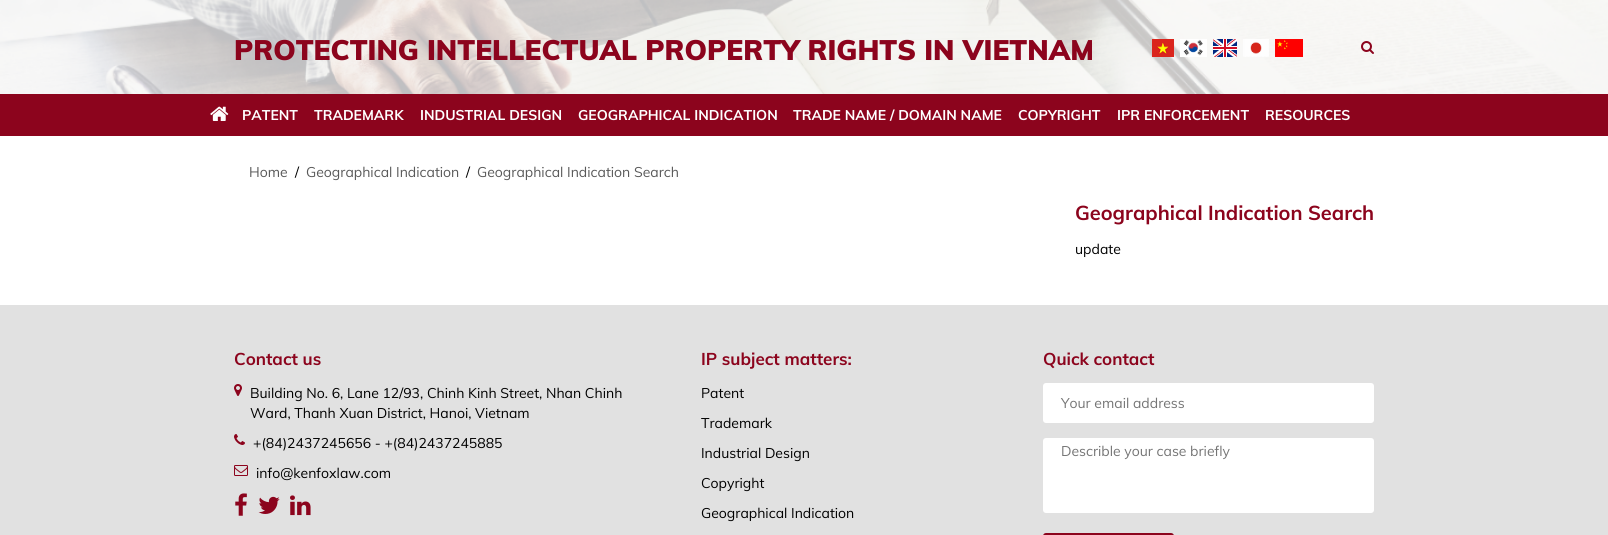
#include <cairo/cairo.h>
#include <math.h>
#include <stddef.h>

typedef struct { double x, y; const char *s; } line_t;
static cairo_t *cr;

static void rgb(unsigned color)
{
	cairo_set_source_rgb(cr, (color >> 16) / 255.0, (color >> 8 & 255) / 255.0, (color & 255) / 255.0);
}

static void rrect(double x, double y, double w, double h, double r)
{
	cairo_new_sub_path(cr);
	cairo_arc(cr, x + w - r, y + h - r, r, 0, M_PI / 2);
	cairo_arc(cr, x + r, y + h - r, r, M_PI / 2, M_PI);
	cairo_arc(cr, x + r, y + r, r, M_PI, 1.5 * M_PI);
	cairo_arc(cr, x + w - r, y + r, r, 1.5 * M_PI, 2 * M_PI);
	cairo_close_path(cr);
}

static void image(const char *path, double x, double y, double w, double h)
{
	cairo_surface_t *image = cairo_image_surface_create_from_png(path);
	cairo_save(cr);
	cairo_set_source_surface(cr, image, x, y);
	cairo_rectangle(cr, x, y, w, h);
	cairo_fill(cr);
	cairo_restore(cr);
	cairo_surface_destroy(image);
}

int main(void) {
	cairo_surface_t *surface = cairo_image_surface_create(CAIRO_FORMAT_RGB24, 1608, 535);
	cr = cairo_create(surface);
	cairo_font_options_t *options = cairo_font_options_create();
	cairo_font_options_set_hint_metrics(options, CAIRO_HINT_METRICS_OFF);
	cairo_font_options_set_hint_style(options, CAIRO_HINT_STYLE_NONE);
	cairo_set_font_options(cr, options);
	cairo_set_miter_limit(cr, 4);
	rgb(0xffffff);
	cairo_paint(cr);
	image("img/1.png", 0, 0, 1608, 94);
	image("img/2.png", 1152, 39, 22, 18);
	image("img/3.png", 1180, 39, 27, 18);
	image("img/4.png", 1213, 39, 24, 18);
	image("img/5.png", 1243, 39, 26, 18);
	image("img/6.png", 1275, 39, 28, 18);
	image("img/7.png", 1361, 41, 13, 13);
	rgb(0x8c041d);
	cairo_rectangle(cr, 0, 94, 1608, 42);
	cairo_fill(cr);
	image("img/8.png", 210, 106, 19, 15);
	rgb(0xe1e1e1);
	cairo_rectangle(cr, 0, 305, 1608, 230);
	cairo_fill(cr);
	image("img/9.png", 234, 384, 8, 12);
	image("img/10.png", 234, 434, 11, 11);
	image("img/11.png", 234, 465, 14, 11);
	image("img/12.png", 235, 493, 12, 23);
	image("img/13.png", 258, 496, 22, 18);
	image("img/14.png", 290, 495, 21, 21);
	rgb(0xffffff);
	rrect(1043, 383, 331, 40, 3);
	cairo_fill(cr);
	rrect(1043, 438, 331, 75, 3);
	cairo_fill(cr);
	rgb(0x8c041d);
	rrect(1043, 533, 131, 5, 3);
	cairo_fill(cr);
	cairo_select_font_face(cr, "Muli Black", CAIRO_FONT_SLANT_NORMAL, CAIRO_FONT_WEIGHT_NORMAL);
	cairo_set_font_size(cr, 28);
	cairo_move_to(cr, 234, 60);
	cairo_show_text(cr, "PROTECTING INTELLECTUAL PROPERTY RIGHTS IN VIETNAM");
	cairo_select_font_face(cr, "Muli", CAIRO_FONT_SLANT_NORMAL, CAIRO_FONT_WEIGHT_BOLD);
	cairo_set_font_size(cr, 14);
	rgb(0xffffff);
	{
		static const line_t items[] = {
			{242, 120, "PATENT"},
			{314, 120, "TRADEMARK"},
			{420, 120, "INDUSTRIAL DESIGN"},
			{578, 120, "GEOGRAPHICAL INDICATION"},
			{793, 120, "TRADE NAME / DOMAIN NAME"},
			{1018, 120, "COPYRIGHT"},
			{1117, 120, "IPR ENFORCEMENT"},
			{1265, 120, "RESOURCES"},
		};
		for (size_t i = 0; i < sizeof items / sizeof *items; i++) {
			cairo_move_to(cr, items[i].x, items[i].y);
			cairo_show_text(cr, items[i].s);
		}
	}
	cairo_select_font_face(cr, "Muli", CAIRO_FONT_SLANT_NORMAL, CAIRO_FONT_WEIGHT_NORMAL);
	rgb(0x595959);
	cairo_move_to(cr, 249, 177);
	cairo_show_text(cr, "Home");
	rgb(0x000000);
	cairo_move_to(cr, 295, 177);
	cairo_show_text(cr, "/");
	rgb(0x595959);
	cairo_move_to(cr, 306, 177);
	cairo_show_text(cr, "Geographical Indication");
	rgb(0x000000);
	cairo_move_to(cr, 466, 177);
	cairo_show_text(cr, "/");
	rgb(0x595959);
	cairo_move_to(cr, 477, 177);
	cairo_show_text(cr, "Geographical Indication Search");
	cairo_select_font_face(cr, "Muli", CAIRO_FONT_SLANT_NORMAL, CAIRO_FONT_WEIGHT_BOLD);
	cairo_set_font_size(cr, 20);
	rgb(0x8c041d);
	cairo_move_to(cr, 1075, 220);
	cairo_show_text(cr, "Geographical Indication Search");
	cairo_select_font_face(cr, "Muli", CAIRO_FONT_SLANT_NORMAL, CAIRO_FONT_WEIGHT_NORMAL);
	cairo_set_font_size(cr, 14);
	rgb(0x000000);
	cairo_move_to(cr, 1075, 254);
	cairo_show_text(cr, "update");
	cairo_select_font_face(cr, "Muli", CAIRO_FONT_SLANT_NORMAL, CAIRO_FONT_WEIGHT_BOLD);
	cairo_set_font_size(cr, 17);
	rgb(0x8c041d);
	cairo_move_to(cr, 234, 365);
	cairo_show_text(cr, "Contact us");
	cairo_select_font_face(cr, "Muli", CAIRO_FONT_SLANT_NORMAL, CAIRO_FONT_WEIGHT_NORMAL);
	cairo_set_font_size(cr, 14);
	rgb(0x000000);
	{
		static const line_t items[] = {
			{250, 398, "Building No. 6, Lane 12/93, Chinh Kinh Street, Nhan Chinh"},
			{250, 418, "Ward, Thanh Xuan District, Hanoi, Vietnam"},
			{253, 448, "+(84)2437245656 - +(84)2437245885"},
			{256, 478, "info@kenfoxlaw.com"},
		};
		for (size_t i = 0; i < sizeof items / sizeof *items; i++) {
			cairo_move_to(cr, items[i].x, items[i].y);
			cairo_show_text(cr, items[i].s);
		}
	}
	cairo_select_font_face(cr, "Muli", CAIRO_FONT_SLANT_NORMAL, CAIRO_FONT_WEIGHT_BOLD);
	cairo_set_font_size(cr, 17);
	rgb(0x8c041d);
	cairo_move_to(cr, 701, 365);
	cairo_show_text(cr, "IP subject matters:");
	cairo_select_font_face(cr, "Muli", CAIRO_FONT_SLANT_NORMAL, CAIRO_FONT_WEIGHT_NORMAL);
	cairo_set_font_size(cr, 14);
	rgb(0x000000);
	{
		static const line_t items[] = {
			{701, 398, "Patent"},
			{701, 428, "Trademark"},
			{701, 458, "Industrial Design"},
			{701, 488, "Copyright"},
			{701, 518, "Geographical Indication"},
		};
		for (size_t i = 0; i < sizeof items / sizeof *items; i++) {
			cairo_move_to(cr, items[i].x, items[i].y);
			cairo_show_text(cr, items[i].s);
		}
	}
	cairo_select_font_face(cr, "Muli", CAIRO_FONT_SLANT_NORMAL, CAIRO_FONT_WEIGHT_BOLD);
	cairo_set_font_size(cr, 17);
	rgb(0x8c041d);
	cairo_move_to(cr, 1043, 365);
	cairo_show_text(cr, "Quick contact");
	cairo_select_font_face(cr, "Muli", CAIRO_FONT_SLANT_NORMAL, CAIRO_FONT_WEIGHT_NORMAL);
	cairo_set_font_size(cr, 14);
	rgb(0x757575);
	cairo_move_to(cr, 1061, 408);
	cairo_show_text(cr, "Your email address");
	cairo_move_to(cr, 1061, 456);
	cairo_show_text(cr, "Describle your case briefly");
	cairo_surface_write_to_png(surface, "page.png");
	cairo_font_options_destroy(options);
	cairo_destroy(cr);
	cairo_surface_destroy(surface);
	return 0;
}
